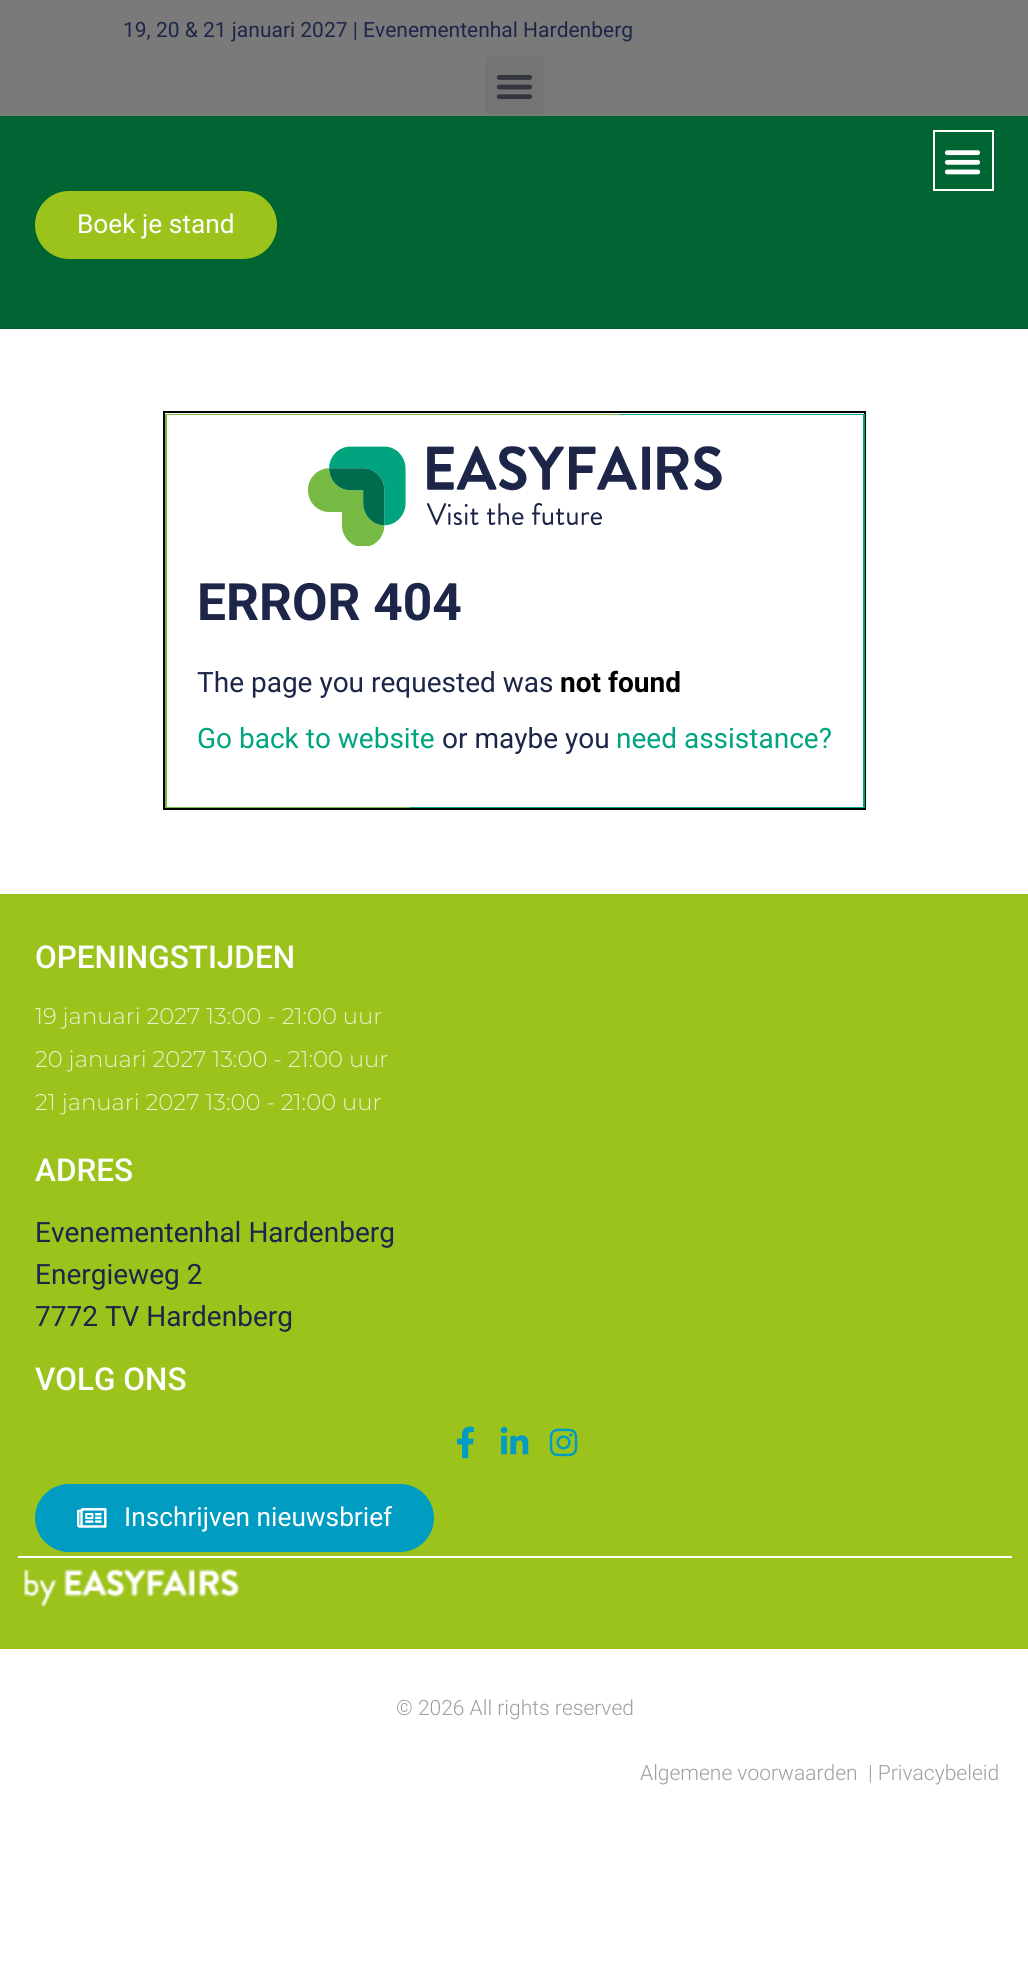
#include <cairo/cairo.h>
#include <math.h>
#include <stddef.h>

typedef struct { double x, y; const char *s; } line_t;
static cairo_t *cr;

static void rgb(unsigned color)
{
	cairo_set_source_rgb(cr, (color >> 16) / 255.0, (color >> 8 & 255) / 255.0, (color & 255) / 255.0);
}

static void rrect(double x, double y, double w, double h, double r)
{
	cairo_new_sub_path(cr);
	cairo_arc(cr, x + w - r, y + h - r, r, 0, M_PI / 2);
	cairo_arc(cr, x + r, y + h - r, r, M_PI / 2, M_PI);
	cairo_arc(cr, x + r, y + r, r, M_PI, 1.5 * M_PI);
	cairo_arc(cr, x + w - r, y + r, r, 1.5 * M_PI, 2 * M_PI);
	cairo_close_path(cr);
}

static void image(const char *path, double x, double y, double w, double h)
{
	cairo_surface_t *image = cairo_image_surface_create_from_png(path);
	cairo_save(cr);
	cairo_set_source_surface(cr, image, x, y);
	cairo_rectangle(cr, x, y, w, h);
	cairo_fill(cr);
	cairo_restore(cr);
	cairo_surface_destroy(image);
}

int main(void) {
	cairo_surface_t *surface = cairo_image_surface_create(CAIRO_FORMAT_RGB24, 1028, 1986);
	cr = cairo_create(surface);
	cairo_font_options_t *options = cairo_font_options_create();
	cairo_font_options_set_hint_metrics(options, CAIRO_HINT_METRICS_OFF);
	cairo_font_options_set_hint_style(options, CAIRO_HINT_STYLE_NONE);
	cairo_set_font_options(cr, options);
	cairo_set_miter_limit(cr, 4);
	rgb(0xffffff);
	cairo_paint(cr);
	rgb(0x7a7a7a);
	cairo_rectangle(cr, 0, 0, 1028, 116);
	cairo_fill(cr);
	rgb(0x747474);
	rrect(485, 56, 59, 58, 5);
	cairo_fill(cr);
	image("img/1.png", 496, 75, 37, 25);
	rgb(0x016533);
	cairo_rectangle(cr, 0, 116, 1028, 213);
	cairo_fill(cr);
	cairo_rectangle(cr, 934, 131, 59, 59);
	rgb(0xffffff);
	cairo_stroke(cr);
	image("img/2.png", 944, 150, 37, 25);
	rgb(0x9cc31c);
	rrect(35, 191, 242, 68, 34);
	cairo_fill(cr);
	image("img/3.png", 308, 446, 414, 100);
	cairo_rectangle(cr, 164, 412, 701, 397);
	rgb(0x000000);
	cairo_stroke(cr);
	rgb(0x76ba43);
	cairo_new_path(cr);
	cairo_move_to(cr, 167, 415);
	cairo_line_to(cr, 167, 807);
	cairo_line_to(cr, 410, 807);
	cairo_line_to(cr, 409, 808);
	cairo_line_to(cr, 165, 808);
	cairo_line_to(cr, 165, 414);
	cairo_line_to(cr, 620, 414);
	cairo_line_to(cr, 619, 415);
	cairo_close_path(cr);
	cairo_fill(cr);
	rgb(0x00a57f);
	cairo_new_path(cr);
	cairo_move_to(cr, 620, 414);
	cairo_line_to(cr, 865, 414);
	cairo_line_to(cr, 865, 808);
	cairo_line_to(cr, 409, 808);
	cairo_line_to(cr, 410, 807);
	cairo_line_to(cr, 863, 807);
	cairo_line_to(cr, 863, 415);
	cairo_line_to(cr, 619, 415);
	cairo_close_path(cr);
	cairo_fill(cr);
	rgb(0x9cc31c);
	cairo_rectangle(cr, 0, 894, 1028, 755);
	cairo_fill(cr);
	image("img/4.png", 457, 1426, 17, 33);
	image("img/5.png", 500, 1426, 29, 29);
	image("img/6.png", 549, 1428, 29, 29);
	rgb(0x009cc1);
	rrect(35, 1484, 399, 68, 34);
	cairo_fill(cr);
	image("img/7.png", 77, 1508, 30, 20);
	rgb(0xffffff);
	cairo_rectangle(cr, 18, 1556, 994, 2);
	cairo_fill(cr);
	image("img/8.png", 24, 1569, 215, 38);
	cairo_select_font_face(cr, "Roboto", CAIRO_FONT_SLANT_NORMAL, CAIRO_FONT_WEIGHT_NORMAL);
	cairo_set_font_size(cr, 21);
	rgb(0x1d2649);
	cairo_move_to(cr, 123, 37);
	cairo_show_text(cr, "19, 20 & 21 januari 2027 | Evenementenhal Hardenberg");
	cairo_set_font_size(cr, 26.25);
	rgb(0xffffff);
	cairo_move_to(cr, 77, 233);
	cairo_show_text(cr, "Boek je stand");
	cairo_select_font_face(cr, "Roboto", CAIRO_FONT_SLANT_NORMAL, CAIRO_FONT_WEIGHT_BOLD);
	cairo_set_font_size(cr, 51.5);
	rgb(0x1d2649);
	cairo_move_to(cr, 197, 620);
	cairo_show_text(cr, "ERROR 404");
	cairo_select_font_face(cr, "Roboto", CAIRO_FONT_SLANT_NORMAL, CAIRO_FONT_WEIGHT_NORMAL);
	cairo_set_font_size(cr, 28);
	cairo_move_to(cr, 197, 692);
	cairo_show_text(cr, "The page you requested was");
	cairo_select_font_face(cr, "Roboto", CAIRO_FONT_SLANT_NORMAL, CAIRO_FONT_WEIGHT_BOLD);
	rgb(0x000000);
	cairo_move_to(cr, 560, 692);
	cairo_show_text(cr, "not found");
	cairo_select_font_face(cr, "Roboto", CAIRO_FONT_SLANT_NORMAL, CAIRO_FONT_WEIGHT_NORMAL);
	rgb(0x00a57f);
	cairo_move_to(cr, 197, 748);
	cairo_show_text(cr, "Go back to website");
	rgb(0x1d2649);
	cairo_move_to(cr, 442, 748);
	cairo_show_text(cr, "or maybe you");
	rgb(0x00a57f);
	cairo_move_to(cr, 616, 748);
	cairo_show_text(cr, "need assistance?");
	cairo_select_font_face(cr, "Roboto Medium", CAIRO_FONT_SLANT_NORMAL, CAIRO_FONT_WEIGHT_NORMAL);
	cairo_set_font_size(cr, 31.5);
	rgb(0xffffff);
	cairo_move_to(cr, 35, 968);
	cairo_show_text(cr, "OPENINGSTIJDEN");
	cairo_select_font_face(cr, "Montserrat Light", CAIRO_FONT_SLANT_NORMAL, CAIRO_FONT_WEIGHT_NORMAL);
	cairo_set_font_size(cr, 22.75);
	rgb(0xeaf2cf);
	{
		static const line_t items[] = {
			{35, 1024, "19 januari 2027 13:00 - 21:00 uur"},
			{35, 1067, "20 januari 2027 13:00 - 21:00 uur"},
			{35, 1110, "21 januari 2027 13:00 - 21:00 uur"},
		};
		for (size_t i = 0; i < sizeof items / sizeof *items; i++) {
			cairo_move_to(cr, items[i].x, items[i].y);
			cairo_show_text(cr, items[i].s);
		}
	}
	cairo_select_font_face(cr, "Roboto Medium", CAIRO_FONT_SLANT_NORMAL, CAIRO_FONT_WEIGHT_NORMAL);
	cairo_set_font_size(cr, 31.5);
	rgb(0xffffff);
	cairo_move_to(cr, 35, 1181);
	cairo_show_text(cr, "ADRES");
	cairo_select_font_face(cr, "Roboto", CAIRO_FONT_SLANT_NORMAL, CAIRO_FONT_WEIGHT_NORMAL);
	cairo_set_font_size(cr, 28);
	rgb(0x1d2649);
	{
		static const line_t items[] = {
			{35, 1242, "Evenementenhal Hardenberg"},
			{35, 1284, "Energieweg 2"},
			{35, 1326, "7772 TV Hardenberg"},
		};
		for (size_t i = 0; i < sizeof items / sizeof *items; i++) {
			cairo_move_to(cr, items[i].x, items[i].y);
			cairo_show_text(cr, items[i].s);
		}
	}
	cairo_select_font_face(cr, "Roboto Medium", CAIRO_FONT_SLANT_NORMAL, CAIRO_FONT_WEIGHT_NORMAL);
	cairo_set_font_size(cr, 31.5);
	rgb(0xffffff);
	cairo_move_to(cr, 35, 1390);
	cairo_show_text(cr, "VOLG ONS");
	cairo_select_font_face(cr, "Roboto", CAIRO_FONT_SLANT_NORMAL, CAIRO_FONT_WEIGHT_NORMAL);
	cairo_set_font_size(cr, 26.25);
	cairo_move_to(cr, 124, 1526);
	cairo_show_text(cr, "Inschrijven nieuwsbrief");
	cairo_select_font_face(cr, "Roboto Light", CAIRO_FONT_SLANT_NORMAL, CAIRO_FONT_WEIGHT_NORMAL);
	cairo_set_font_size(cr, 21);
	rgb(0x9e9e9e);
	{
		static const line_t items[] = {
			{396, 1715, "© 2026 All rights reserved"},
			{640, 1780, "Algemene voorwaarden"},
			{868, 1780, "| Privacybeleid"},
		};
		for (size_t i = 0; i < sizeof items / sizeof *items; i++) {
			cairo_move_to(cr, items[i].x, items[i].y);
			cairo_show_text(cr, items[i].s);
		}
	}
	cairo_surface_write_to_png(surface, "page.png");
	cairo_font_options_destroy(options);
	cairo_destroy(cr);
	cairo_surface_destroy(surface);
	return 0;
}
